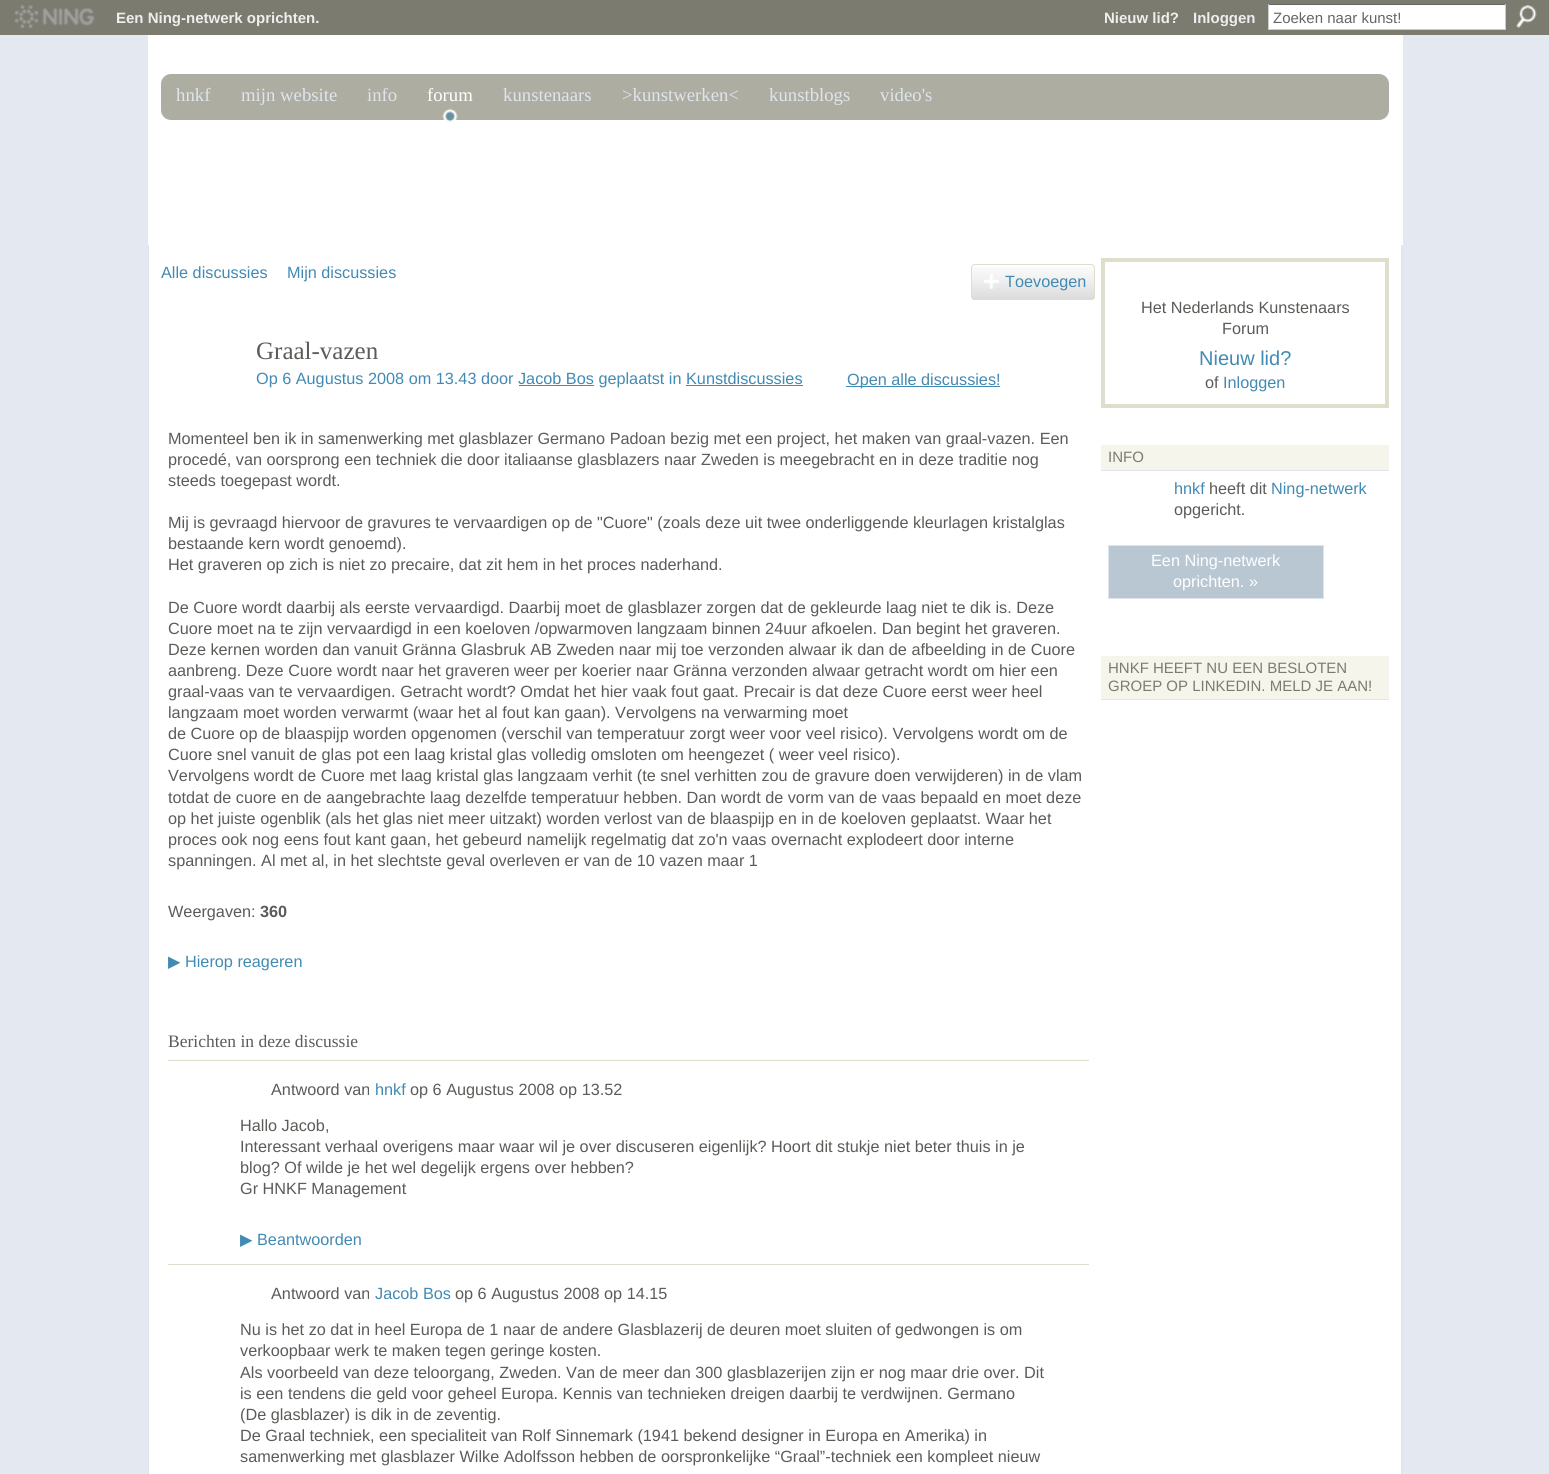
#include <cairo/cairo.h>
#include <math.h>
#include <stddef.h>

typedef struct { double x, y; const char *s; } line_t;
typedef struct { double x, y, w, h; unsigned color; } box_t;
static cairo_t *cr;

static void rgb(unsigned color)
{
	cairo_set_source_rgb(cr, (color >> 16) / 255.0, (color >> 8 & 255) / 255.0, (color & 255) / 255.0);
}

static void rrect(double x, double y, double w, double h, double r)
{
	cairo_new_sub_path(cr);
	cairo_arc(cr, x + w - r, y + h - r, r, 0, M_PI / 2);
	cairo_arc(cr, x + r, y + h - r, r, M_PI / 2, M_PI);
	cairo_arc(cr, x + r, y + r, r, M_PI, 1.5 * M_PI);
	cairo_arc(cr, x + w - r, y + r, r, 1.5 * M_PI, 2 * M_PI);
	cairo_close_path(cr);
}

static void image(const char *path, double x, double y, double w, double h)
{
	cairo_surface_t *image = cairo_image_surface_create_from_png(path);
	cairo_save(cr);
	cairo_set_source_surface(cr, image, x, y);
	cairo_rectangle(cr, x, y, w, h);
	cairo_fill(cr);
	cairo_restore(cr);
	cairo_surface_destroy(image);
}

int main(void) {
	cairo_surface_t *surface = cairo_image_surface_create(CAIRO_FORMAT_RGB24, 1549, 1474);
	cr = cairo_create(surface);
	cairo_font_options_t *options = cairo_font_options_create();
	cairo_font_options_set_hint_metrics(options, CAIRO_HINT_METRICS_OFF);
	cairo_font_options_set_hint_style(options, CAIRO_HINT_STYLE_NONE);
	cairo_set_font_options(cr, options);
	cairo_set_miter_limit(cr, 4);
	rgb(0xe4e8f0);
	cairo_paint(cr);
	rgb(0x7b7b6f);
	cairo_rectangle(cr, 0, 0, 1549, 35);
	cairo_fill(cr);
	image("img/1.png", 14, 4, 81, 25);
	{
		static const box_t items[] = {
			{1269, 5, 236, 24, 0xffffff},
			{1268, 4, 238, 1, 0x666666},
			{1505, 4, 1, 26, 0xcccccc},
			{1268, 29, 238, 1, 0xcccccc},
			{1268, 4, 1, 26, 0xcccccc},
		};
		for (size_t i = 0; i < sizeof items / sizeof *items; i++) {
			rgb(items[i].color);
			cairo_rectangle(cr, items[i].x, items[i].y, items[i].w, items[i].h);
			cairo_fill(cr);
		}
	}
	image("img/2.png", 1516, 5, 21, 23);
	rgb(0xffffff);
	cairo_rectangle(cr, 148, 35, 1255, 210);
	cairo_fill(cr);
	rgb(0xaeada1);
	rrect(161, 74, 1228, 46, 10);
	cairo_fill(cr);
	image("img/3.png", 442, 108, 16, 14);
	rgb(0xffffff);
	cairo_rectangle(cr, 149, 245, 1252, 1229);
	cairo_fill(cr);
	rgb(0xdfe4ed);
	cairo_set_fill_rule(cr, CAIRO_FILL_RULE_EVEN_ODD);
	cairo_new_path(cr);
	cairo_move_to(cr, 148, 245);
	cairo_line_to(cr, 1402, 245);
	cairo_line_to(cr, 1402, 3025);
	cairo_curve_to(cr, 1402, 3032, 1397, 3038, 1390, 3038);
	cairo_line_to(cr, 160, 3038);
	cairo_curve_to(cr, 153, 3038, 148, 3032, 148, 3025);
	cairo_close_path(cr);
	cairo_move_to(cr, 149, 245);
	cairo_line_to(cr, 1401, 245);
	cairo_line_to(cr, 1401, 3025);
	cairo_curve_to(cr, 1401, 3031, 1396, 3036, 1390, 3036);
	cairo_line_to(cr, 160, 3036);
	cairo_curve_to(cr, 154, 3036, 149, 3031, 149, 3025);
	cairo_close_path(cr);
	cairo_fill(cr);
	image("img/4.png", 971, 266, 124, 34);
	rrect(971.5, 264.5, 123, 35, 3.5);
	rgb(0xdfddcb);
	cairo_set_line_width(cr, 1);
	cairo_stroke(cr);
	image("img/5.png", 983, 274, 16, 15);
	{
		static const box_t items[] = {
			{519, 385, 75, 1, 0x428ab3},
			{686, 385, 117, 1, 0x428ab3},
			{846, 386, 154, 1, 0x428ab3},
			{168, 1060, 921, 1, 0xdfddcb},
			{168, 1264, 921, 1, 0xdfddcb},
		};
		for (size_t i = 0; i < sizeof items / sizeof *items; i++) {
			rgb(items[i].color);
			cairo_rectangle(cr, items[i].x, items[i].y, items[i].w, items[i].h);
			cairo_fill(cr);
		}
	}
	cairo_rectangle(cr, 1103, 260, 284, 146);
	cairo_set_line_width(cr, 4);
	cairo_stroke(cr);
	rgb(0xf5f5eb);
	cairo_rectangle(cr, 1101, 445, 288, 25);
	cairo_fill(cr);
	rgb(0xdfe4ed);
	cairo_rectangle(cr, 1101, 470, 288, 1);
	cairo_fill(cr);
	rgb(0xb8c7d1);
	cairo_rectangle(cr, 1108.5, 545.5, 215, 53);
	cairo_fill_preserve(cr);
	rgb(0xdfe4ed);
	cairo_set_line_width(cr, 1);
	cairo_stroke(cr);
	rgb(0xf5f5eb);
	cairo_rectangle(cr, 1101, 656, 288, 43);
	cairo_fill(cr);
	rgb(0xdfe4ed);
	cairo_rectangle(cr, 1101, 699, 288, 1);
	cairo_fill(cr);
	cairo_select_font_face(cr, "Liberation Sans", CAIRO_FONT_SLANT_NORMAL, CAIRO_FONT_WEIGHT_BOLD);
	cairo_set_font_size(cr, 15);
	rgb(0xeeeeee);
	{
		static const line_t items[] = {
			{116, 23, "Een Ning-netwerk oprichten."},
			{1104, 23, "Nieuw lid?"},
			{1193, 23, "Inloggen"},
		};
		for (size_t i = 0; i < sizeof items / sizeof *items; i++) {
			cairo_move_to(cr, items[i].x, items[i].y);
			cairo_show_text(cr, items[i].s);
		}
	}
	cairo_select_font_face(cr, "Liberation Sans", CAIRO_FONT_SLANT_NORMAL, CAIRO_FONT_WEIGHT_NORMAL);
	rgb(0x666666);
	cairo_move_to(cr, 1273, 23);
	cairo_show_text(cr, "Zoeken naar kunst!");
	cairo_select_font_face(cr, "Liberation Serif", CAIRO_FONT_SLANT_NORMAL, CAIRO_FONT_WEIGHT_NORMAL);
	cairo_set_font_size(cr, 18.75);
	rgb(0xdfe4ed);
	{
		static const line_t items[] = {
			{176, 101, "hnkf"},
			{241, 101, "mijn website"},
			{367, 101, "info"},
		};
		for (size_t i = 0; i < sizeof items / sizeof *items; i++) {
			cairo_move_to(cr, items[i].x, items[i].y);
			cairo_show_text(cr, items[i].s);
		}
	}
	rgb(0xffffff);
	cairo_move_to(cr, 427, 101);
	cairo_show_text(cr, "forum");
	rgb(0xdfe4ed);
	{
		static const line_t items[] = {
			{503, 101, "kunstenaars"},
			{622, 101, ">kunstwerken<"},
			{769, 101, "kunstblogs"},
			{880, 101, "video's"},
		};
		for (size_t i = 0; i < sizeof items / sizeof *items; i++) {
			cairo_move_to(cr, items[i].x, items[i].y);
			cairo_show_text(cr, items[i].s);
		}
	}
	cairo_select_font_face(cr, "Liberation Sans", CAIRO_FONT_SLANT_NORMAL, CAIRO_FONT_WEIGHT_NORMAL);
	cairo_set_font_size(cr, 16.25);
	rgb(0x428ab3);
	{
		static const line_t items[] = {
			{161, 278, "Alle discussies"},
			{287, 278, "Mijn discussies"},
			{1005, 287, "Toevoegen"},
		};
		for (size_t i = 0; i < sizeof items / sizeof *items; i++) {
			cairo_move_to(cr, items[i].x, items[i].y);
			cairo_show_text(cr, items[i].s);
		}
	}
	cairo_select_font_face(cr, "Liberation Serif", CAIRO_FONT_SLANT_NORMAL, CAIRO_FONT_WEIGHT_NORMAL);
	cairo_set_font_size(cr, 25);
	rgb(0x5b5b58);
	cairo_move_to(cr, 256, 359);
	cairo_show_text(cr, "Graal-vazen");
	cairo_select_font_face(cr, "Liberation Sans", CAIRO_FONT_SLANT_NORMAL, CAIRO_FONT_WEIGHT_NORMAL);
	cairo_set_font_size(cr, 16.25);
	rgb(0x428ab3);
	cairo_move_to(cr, 256, 384);
	cairo_show_text(cr, "Op 6 Augustus 2008 om 13.43 door Jacob Bos geplaatst in Kunstdiscussies");
	cairo_move_to(cr, 847, 385);
	cairo_show_text(cr, "Open alle discussies!");
	rgb(0x5b5b58);
	{
		static const line_t items[] = {
			{168, 444, "Momenteel ben ik in samenwerking met glasblazer Germano Padoan bezig met een project, het maken van graal-vazen. Een"},
			{168, 465, "procedé, van oorsprong een techniek die door italiaanse glasblazers naar Zweden is meegebracht en in deze traditie nog"},
			{168, 486, "steeds toegepast wordt."},
			{168, 528, "Mij is gevraagd hiervoor de gravures te vervaardigen op de \"Cuore\" (zoals deze uit twee onderliggende kleurlagen kristalglas"},
			{168, 549, "bestaande kern wordt genoemd)."},
			{168, 570, "Het graveren op zich is niet zo precaire, dat zit hem in het proces naderhand."},
			{168, 613, "De Cuore wordt daarbij als eerste vervaardigd. Daarbij moet de glasblazer zorgen dat de gekleurde laag niet te dik is. Deze"},
			{168, 634, "Cuore moet na te zijn vervaardigd in een koeloven /opwarmoven langzaam binnen 24uur afkoelen. Dan begint het graveren."},
			{168, 655, "Deze kernen worden dan vanuit Gränna Glasbruk AB Zweden naar mij toe verzonden alwaar ik dan de afbeelding in de Cuore"},
			{168, 676, "aanbreng. Deze Cuore wordt naar het graveren weer per koerier naar Gränna verzonden alwaar getracht wordt om hier een"},
			{168, 697, "graal-vaas van te vervaardigen. Getracht wordt? Omdat het hier vaak fout gaat. Precair is dat deze Cuore eerst weer heel"},
			{168, 718, "langzaam moet worden verwarmt (waar het al fout kan gaan). Vervolgens na verwarming moet"},
			{168, 739, "de Cuore op de blaaspijp worden opgenomen (verschil van temperatuur zorgt weer voor veel risico). Vervolgens wordt om de"},
			{168, 760, "Cuore snel vanuit de glas pot een laag kristal glas volledig omsloten om heengezet ( weer veel risico)."},
			{168, 781, "Vervolgens wordt de Cuore met laag kristal glas langzaam verhit (te snel verhitten zou de gravure doen verwijderen) in de vlam"},
			{168, 803, "totdat de cuore en de aangebrachte laag dezelfde temperatuur hebben. Dan wordt de vorm van de vaas bepaald en moet deze"},
			{168, 824, "op het juiste ogenblik (als het glas niet meer uitzakt) worden verlost van de blaaspijp en in de koeloven geplaatst. Waar het"},
			{168, 845, "proces ook nog eens fout kant gaan, het gebeurd namelijk regelmatig dat zo'n vaas overnacht explodeert door interne"},
			{168, 866, "spanningen. Al met al, in het slechtste geval overleven er van de 10 vazen maar 1"},
			{168, 917, "Weergaven:"},
		};
		for (size_t i = 0; i < sizeof items / sizeof *items; i++) {
			cairo_move_to(cr, items[i].x, items[i].y);
			cairo_show_text(cr, items[i].s);
		}
	}
	cairo_select_font_face(cr, "Liberation Sans", CAIRO_FONT_SLANT_NORMAL, CAIRO_FONT_WEIGHT_BOLD);
	cairo_move_to(cr, 260, 917);
	cairo_show_text(cr, "360");
	cairo_select_font_face(cr, "DejaVu Sans", CAIRO_FONT_SLANT_NORMAL, CAIRO_FONT_WEIGHT_NORMAL);
	rgb(0x428ab3);
	cairo_move_to(cr, 168, 967);
	cairo_show_text(cr, "▶");
	cairo_select_font_face(cr, "Liberation Sans", CAIRO_FONT_SLANT_NORMAL, CAIRO_FONT_WEIGHT_NORMAL);
	cairo_move_to(cr, 185, 967);
	cairo_show_text(cr, "Hierop reageren");
	cairo_select_font_face(cr, "Liberation Serif", CAIRO_FONT_SLANT_NORMAL, CAIRO_FONT_WEIGHT_NORMAL);
	cairo_set_font_size(cr, 17.5);
	rgb(0x5b5b58);
	cairo_move_to(cr, 168, 1047);
	cairo_show_text(cr, "Berichten in deze discussie");
	cairo_select_font_face(cr, "Liberation Sans", CAIRO_FONT_SLANT_NORMAL, CAIRO_FONT_WEIGHT_NORMAL);
	cairo_set_font_size(cr, 16.25);
	cairo_move_to(cr, 271, 1095);
	cairo_show_text(cr, "Antwoord van");
	rgb(0x428ab3);
	cairo_move_to(cr, 375, 1095);
	cairo_show_text(cr, "hnkf");
	rgb(0x5b5b58);
	{
		static const line_t items[] = {
			{410, 1095, "op 6 Augustus 2008 op 13.52"},
			{240, 1131, "Hallo Jacob,"},
			{240, 1152, "Interessant verhaal overigens maar waar wil je over discuseren eigenlijk? Hoort dit stukje niet beter thuis in je"},
			{240, 1173, "blog? Of wilde je het wel degelijk ergens over hebben?"},
			{240, 1194, "Gr HNKF Management"},
		};
		for (size_t i = 0; i < sizeof items / sizeof *items; i++) {
			cairo_move_to(cr, items[i].x, items[i].y);
			cairo_show_text(cr, items[i].s);
		}
	}
	cairo_select_font_face(cr, "DejaVu Sans", CAIRO_FONT_SLANT_NORMAL, CAIRO_FONT_WEIGHT_NORMAL);
	rgb(0x428ab3);
	cairo_move_to(cr, 240, 1245);
	cairo_show_text(cr, "▶");
	cairo_select_font_face(cr, "Liberation Sans", CAIRO_FONT_SLANT_NORMAL, CAIRO_FONT_WEIGHT_NORMAL);
	cairo_move_to(cr, 257, 1245);
	cairo_show_text(cr, "Beantwoorden");
	rgb(0x5b5b58);
	cairo_move_to(cr, 271, 1299);
	cairo_show_text(cr, "Antwoord van");
	rgb(0x428ab3);
	cairo_move_to(cr, 375, 1299);
	cairo_show_text(cr, "Jacob Bos");
	rgb(0x5b5b58);
	{
		static const line_t items[] = {
			{455, 1299, "op 6 Augustus 2008 op 14.15"},
			{240, 1335, "Nu is het zo dat in heel Europa de 1 naar de andere Glasblazerij de deuren moet sluiten of gedwongen is om"},
			{240, 1356, "verkoopbaar werk te maken tegen geringe kosten."},
			{240, 1378, "Als voorbeeld van deze teloorgang, Zweden. Van de meer dan 300 glasblazerijen zijn er nog maar drie over. Dit"},
			{240, 1399, "is een tendens die geld voor geheel Europa. Kennis van technieken dreigen daarbij te verdwijnen. Germano"},
			{240, 1420, "(De glasblazer) is dik in de zeventig."},
			{240, 1441, "De Graal techniek, een specialiteit van Rolf Sinnemark (1941 bekend designer in Europa en Amerika) in"},
			{240, 1462, "samenwerking met glasblazer Wilke Adolfsson hebben de oorspronkelijke “Graal”-techniek een kompleet nieuw"},
			{1141, 313, "Het Nederlands Kunstenaars"},
			{1222, 334, "Forum"},
		};
		for (size_t i = 0; i < sizeof items / sizeof *items; i++) {
			cairo_move_to(cr, items[i].x, items[i].y);
			cairo_show_text(cr, items[i].s);
		}
	}
	cairo_set_font_size(cr, 20);
	rgb(0x428ab3);
	cairo_move_to(cr, 1199, 365);
	cairo_show_text(cr, "Nieuw lid?");
	cairo_set_font_size(cr, 16.25);
	rgb(0x5b5b58);
	cairo_move_to(cr, 1205, 388);
	cairo_show_text(cr, "of");
	rgb(0x428ab3);
	cairo_move_to(cr, 1223, 388);
	cairo_show_text(cr, "Inloggen");
	cairo_set_font_size(cr, 15);
	rgb(0x7b7b6f);
	cairo_move_to(cr, 1108, 462);
	cairo_show_text(cr, "INFO");
	cairo_set_font_size(cr, 16.25);
	rgb(0x428ab3);
	cairo_move_to(cr, 1174, 494);
	cairo_show_text(cr, "hnkf");
	rgb(0x5b5b58);
	cairo_move_to(cr, 1209, 494);
	cairo_show_text(cr, "heeft dit");
	rgb(0x428ab3);
	cairo_move_to(cr, 1271, 494);
	cairo_show_text(cr, "Ning-netwerk");
	rgb(0x5b5b58);
	cairo_move_to(cr, 1174, 515);
	cairo_show_text(cr, "opgericht.");
	rgb(0xffffff);
	cairo_move_to(cr, 1151, 566);
	cairo_show_text(cr, "Een Ning-netwerk");
	cairo_move_to(cr, 1173, 587);
	cairo_show_text(cr, "oprichten. »");
	cairo_set_font_size(cr, 15);
	rgb(0x7b7b6f);
	cairo_move_to(cr, 1108, 673);
	cairo_show_text(cr, "HNKF HEEFT NU EEN BESLOTEN");
	cairo_move_to(cr, 1108, 691);
	cairo_show_text(cr, "GROEP OP LINKEDIN. MELD JE AAN!");
	cairo_surface_write_to_png(surface, "page.png");
	cairo_font_options_destroy(options);
	cairo_destroy(cr);
	cairo_surface_destroy(surface);
	return 0;
}
